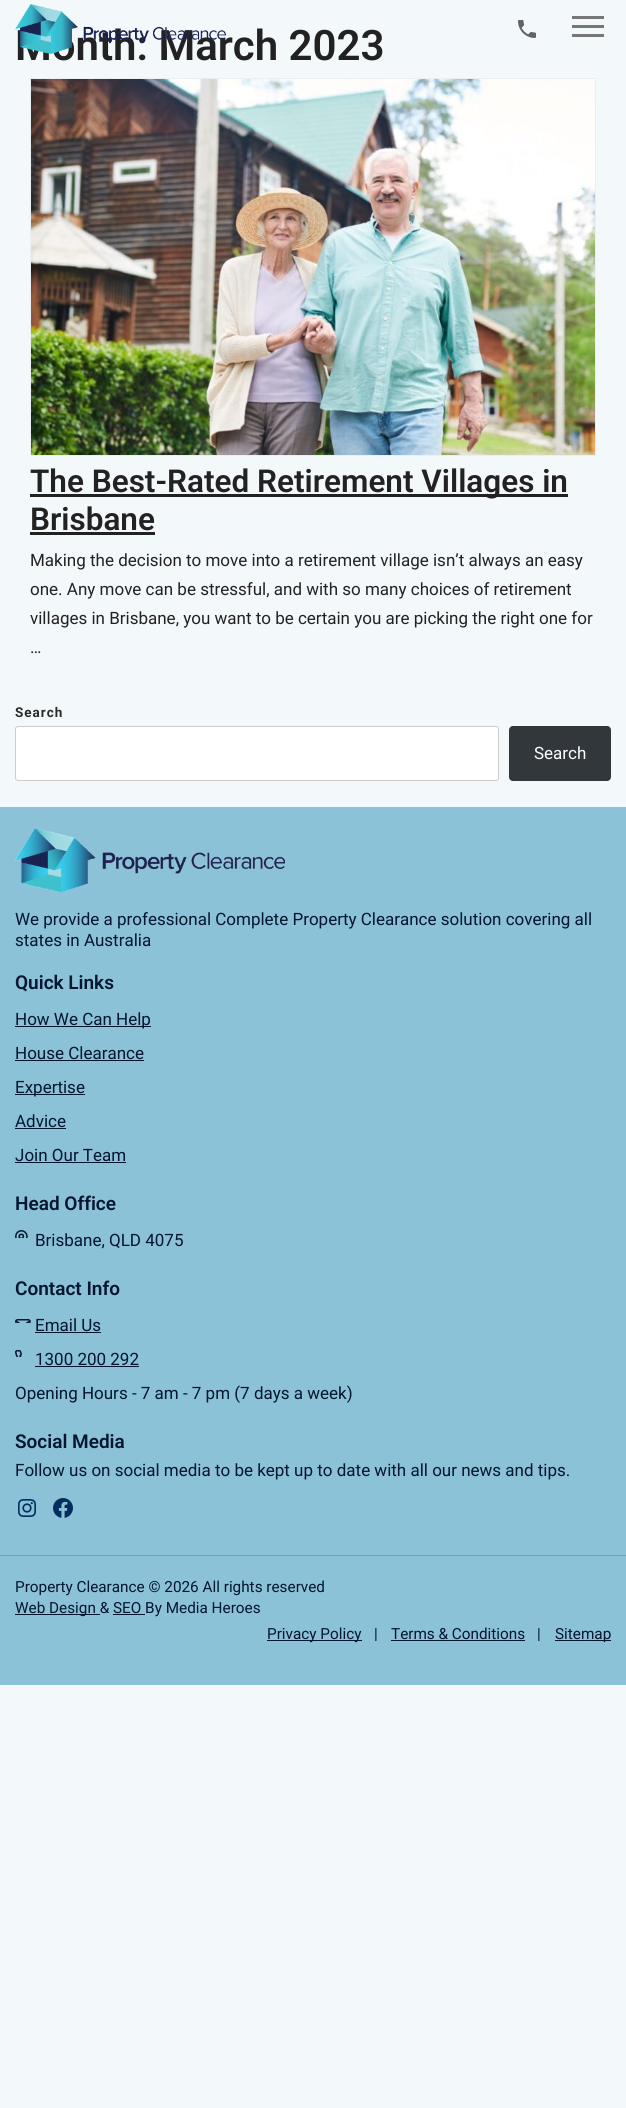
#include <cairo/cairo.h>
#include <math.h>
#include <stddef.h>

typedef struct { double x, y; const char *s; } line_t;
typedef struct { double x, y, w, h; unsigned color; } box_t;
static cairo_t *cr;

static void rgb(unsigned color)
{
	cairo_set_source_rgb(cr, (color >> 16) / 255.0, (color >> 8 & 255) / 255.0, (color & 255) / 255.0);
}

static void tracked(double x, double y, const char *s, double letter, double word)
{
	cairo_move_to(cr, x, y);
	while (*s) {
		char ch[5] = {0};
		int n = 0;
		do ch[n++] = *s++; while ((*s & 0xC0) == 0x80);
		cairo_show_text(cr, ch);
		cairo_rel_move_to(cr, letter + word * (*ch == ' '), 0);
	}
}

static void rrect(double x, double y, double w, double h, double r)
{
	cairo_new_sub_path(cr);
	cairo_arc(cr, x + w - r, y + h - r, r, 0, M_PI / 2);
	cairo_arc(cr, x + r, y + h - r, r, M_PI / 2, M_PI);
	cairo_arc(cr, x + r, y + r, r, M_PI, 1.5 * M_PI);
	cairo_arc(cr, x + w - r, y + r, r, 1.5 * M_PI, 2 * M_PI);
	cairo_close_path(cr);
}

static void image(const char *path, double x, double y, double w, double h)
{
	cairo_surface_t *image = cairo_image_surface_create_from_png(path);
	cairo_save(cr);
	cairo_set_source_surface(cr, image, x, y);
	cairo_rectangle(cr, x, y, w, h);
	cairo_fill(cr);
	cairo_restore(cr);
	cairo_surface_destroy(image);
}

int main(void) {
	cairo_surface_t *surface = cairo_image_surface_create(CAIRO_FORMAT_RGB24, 626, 2108);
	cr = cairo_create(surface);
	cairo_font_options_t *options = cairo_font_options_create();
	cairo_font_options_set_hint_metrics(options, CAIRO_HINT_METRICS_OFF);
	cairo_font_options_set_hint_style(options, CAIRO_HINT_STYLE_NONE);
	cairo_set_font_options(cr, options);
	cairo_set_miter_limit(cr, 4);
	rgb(0xf3f8fb);
	cairo_paint(cr);
	image("img/2.png", 518, 20, 18, 18);
	{
		static const box_t items[] = {
			{572, 34, 32, 3, 0x777777},
			{572, 25, 32, 3, 0x777777},
			{572, 16, 32, 3, 0x777777},
		};
		for (size_t i = 0; i < sizeof items / sizeof *items; i++) {
			rgb(items[i].color);
			cairo_rectangle(cr, items[i].x, items[i].y, items[i].w, items[i].h);
			cairo_fill(cr);
		}
	}
	cairo_rectangle(cr, 30.5, 78.5, 565, 377);
	rgb(0xeeeeee);
	cairo_set_line_width(cr, 1);
	cairo_stroke(cr);
	image("img/3.png", 31, 79, 564, 376);
	rgb(0x222222);
	cairo_rectangle(cr, 30, 494, 538, 3);
	cairo_fill(cr);
	cairo_rectangle(cr, 30, 532, 125, 3);
	cairo_fill(cr);
	rgb(0xffffff);
	rrect(15, 726, 484, 55, 3);
	cairo_fill(cr);
	rrect(15.5, 726.5, 483, 54, 2.5);
	cairo_set_source_rgba(cr, 0, 0, 0, 0.2);
	cairo_stroke(cr);
	rgb(0x32373c);
	rrect(509, 726, 102, 55, 4);
	cairo_fill(cr);
	rgb(0x8bc2d7);
	cairo_rectangle(cr, 0, 807, 626, 878);
	cairo_fill(cr);
	image("img/4.png", 15, 828, 270, 64);
	{
		static const box_t items[] = {
			{15, 1026, 136, 1, 0x03152f},
			{15, 1060, 129, 1, 0x03152f},
			{15, 1094, 70, 1, 0x03152f},
			{15, 1128, 51, 1, 0x03152f},
			{15, 1162, 111, 1, 0x03152f},
		};
		for (size_t i = 0; i < sizeof items / sizeof *items; i++) {
			rgb(items[i].color);
			cairo_rectangle(cr, items[i].x, items[i].y, items[i].w, items[i].h);
			cairo_fill(cr);
		}
	}
	image("img/5.png", 15, 1230, 13, 8);
	image("img/6.png", 15, 1319, 16, 4);
	cairo_rectangle(cr, 35, 1332, 66, 1);
	cairo_fill(cr);
	image("img/7.png", 15, 1350, 7, 7);
	cairo_rectangle(cr, 35, 1366, 104, 1);
	cairo_fill(cr);
	image("img/8.png", 18, 1499, 18, 18);
	image("img/9.png", 53, 1498, 20, 20);
	{
		static const box_t items[] = {
			{0, 1555, 626, 1, 0x6da3b8},
			{15, 1614, 85, 1, 0x03152f},
			{113, 1614, 32, 1, 0x03152f},
			{267, 1640, 95, 1, 0x03152f},
			{391, 1640, 134, 1, 0x03152f},
			{555, 1640, 56, 1, 0x03152f},
		};
		for (size_t i = 0; i < sizeof items / sizeof *items; i++) {
			rgb(items[i].color);
			cairo_rectangle(cr, items[i].x, items[i].y, items[i].w, items[i].h);
			cairo_fill(cr);
		}
	}
	cairo_select_font_face(cr, "Roboto SemiBold", CAIRO_FONT_SLANT_NORMAL, CAIRO_FONT_WEIGHT_NORMAL);
	cairo_set_font_size(cr, 42);
	rgb(0x222222);
	cairo_move_to(cr, 15, 60);
	cairo_show_text(cr, "Month: March 2023");
	image("img/1.png", 15, 4, 211, 50);
	cairo_set_font_size(cr, 31.5);
	cairo_move_to(cr, 30, 492);
	cairo_show_text(cr, "The Best-Rated Retirement Villages in");
	cairo_move_to(cr, 30, 530);
	cairo_show_text(cr, "Brisbane");
	cairo_select_font_face(cr, "Roboto", CAIRO_FONT_SLANT_NORMAL, CAIRO_FONT_WEIGHT_NORMAL);
	cairo_set_font_size(cr, 17);
	{
		static const line_t items[] = {
			{30, 566, "Making the decision to move into a retirement village isn’t always an easy"},
			{30, 595, "one. Any move can be stressful, and with so many choices of retirement"},
			{30, 624, "villages in Brisbane, you want to be certain you are picking the right one for"},
			{30, 653, "…"},
		};
		for (size_t i = 0; i < sizeof items / sizeof *items; i++) {
			cairo_move_to(cr, items[i].x, items[i].y);
			cairo_show_text(cr, items[i].s);
		}
	}
	cairo_select_font_face(cr, "Roboto", CAIRO_FONT_SLANT_NORMAL, CAIRO_FONT_WEIGHT_BOLD);
	cairo_set_font_size(cr, 13.5);
	rgb(0x2b2b2b);
	tracked(15, 717, "Search", 1, 0);
	cairo_select_font_face(cr, "Roboto", CAIRO_FONT_SLANT_NORMAL, CAIRO_FONT_WEIGHT_NORMAL);
	cairo_set_font_size(cr, 17);
	rgb(0xffffff);
	cairo_move_to(cr, 534, 759);
	cairo_show_text(cr, "Search");
	rgb(0x03152f);
	cairo_move_to(cr, 15, 925);
	cairo_show_text(cr, "We provide a professional Complete Property Clearance solution covering all");
	cairo_move_to(cr, 15, 946);
	cairo_show_text(cr, "states in Australia");
	cairo_select_font_face(cr, "Roboto SemiBold", CAIRO_FONT_SLANT_NORMAL, CAIRO_FONT_WEIGHT_NORMAL);
	cairo_set_font_size(cr, 19);
	cairo_move_to(cr, 15, 989);
	cairo_show_text(cr, "Quick Links");
	cairo_select_font_face(cr, "Roboto", CAIRO_FONT_SLANT_NORMAL, CAIRO_FONT_WEIGHT_NORMAL);
	cairo_set_font_size(cr, 17);
	{
		static const line_t items[] = {
			{15, 1025, "How We Can Help"},
			{15, 1059, "House Clearance"},
			{15, 1093, "Expertise"},
			{15, 1127, "Advice"},
			{15, 1161, "Join Our Team"},
		};
		for (size_t i = 0; i < sizeof items / sizeof *items; i++) {
			cairo_move_to(cr, items[i].x, items[i].y);
			cairo_show_text(cr, items[i].s);
		}
	}
	cairo_select_font_face(cr, "Roboto SemiBold", CAIRO_FONT_SLANT_NORMAL, CAIRO_FONT_WEIGHT_NORMAL);
	cairo_set_font_size(cr, 19);
	cairo_move_to(cr, 15, 1210);
	cairo_show_text(cr, "Head Office");
	cairo_select_font_face(cr, "Roboto", CAIRO_FONT_SLANT_NORMAL, CAIRO_FONT_WEIGHT_NORMAL);
	cairo_set_font_size(cr, 17);
	cairo_move_to(cr, 35, 1246);
	cairo_show_text(cr, "Brisbane, QLD 4075");
	cairo_select_font_face(cr, "Roboto SemiBold", CAIRO_FONT_SLANT_NORMAL, CAIRO_FONT_WEIGHT_NORMAL);
	cairo_set_font_size(cr, 19);
	cairo_move_to(cr, 15, 1295);
	cairo_show_text(cr, "Contact Info");
	cairo_select_font_face(cr, "Roboto", CAIRO_FONT_SLANT_NORMAL, CAIRO_FONT_WEIGHT_NORMAL);
	cairo_set_font_size(cr, 17);
	{
		static const line_t items[] = {
			{35, 1331, "Email Us"},
			{35, 1365, "1300 200 292"},
			{15, 1399, "Opening Hours - 7 am - 7 pm (7 days a week)"},
		};
		for (size_t i = 0; i < sizeof items / sizeof *items; i++) {
			cairo_move_to(cr, items[i].x, items[i].y);
			cairo_show_text(cr, items[i].s);
		}
	}
	cairo_select_font_face(cr, "Roboto SemiBold", CAIRO_FONT_SLANT_NORMAL, CAIRO_FONT_WEIGHT_NORMAL);
	cairo_set_font_size(cr, 19);
	cairo_move_to(cr, 15, 1448);
	cairo_show_text(cr, "Social Media");
	cairo_select_font_face(cr, "Roboto", CAIRO_FONT_SLANT_NORMAL, CAIRO_FONT_WEIGHT_NORMAL);
	cairo_set_font_size(cr, 17);
	cairo_move_to(cr, 15, 1476);
	cairo_show_text(cr, "Follow us on social media to be kept up to date with all our news and tips.");
	cairo_set_font_size(cr, 15.3);
	{
		static const line_t items[] = {
			{15, 1592, "Property Clearance © 2026 All rights reserved"},
			{15, 1613, "Web Design & SEO By Media Heroes"},
			{267, 1639, "Privacy Policy"},
			{374, 1639, "|"},
			{391, 1639, "Terms & Conditions"},
			{537, 1639, "|"},
			{555, 1639, "Sitemap"},
		};
		for (size_t i = 0; i < sizeof items / sizeof *items; i++) {
			cairo_move_to(cr, items[i].x, items[i].y);
			cairo_show_text(cr, items[i].s);
		}
	}
	cairo_surface_write_to_png(surface, "page.png");
	cairo_font_options_destroy(options);
	cairo_destroy(cr);
	cairo_surface_destroy(surface);
	return 0;
}
